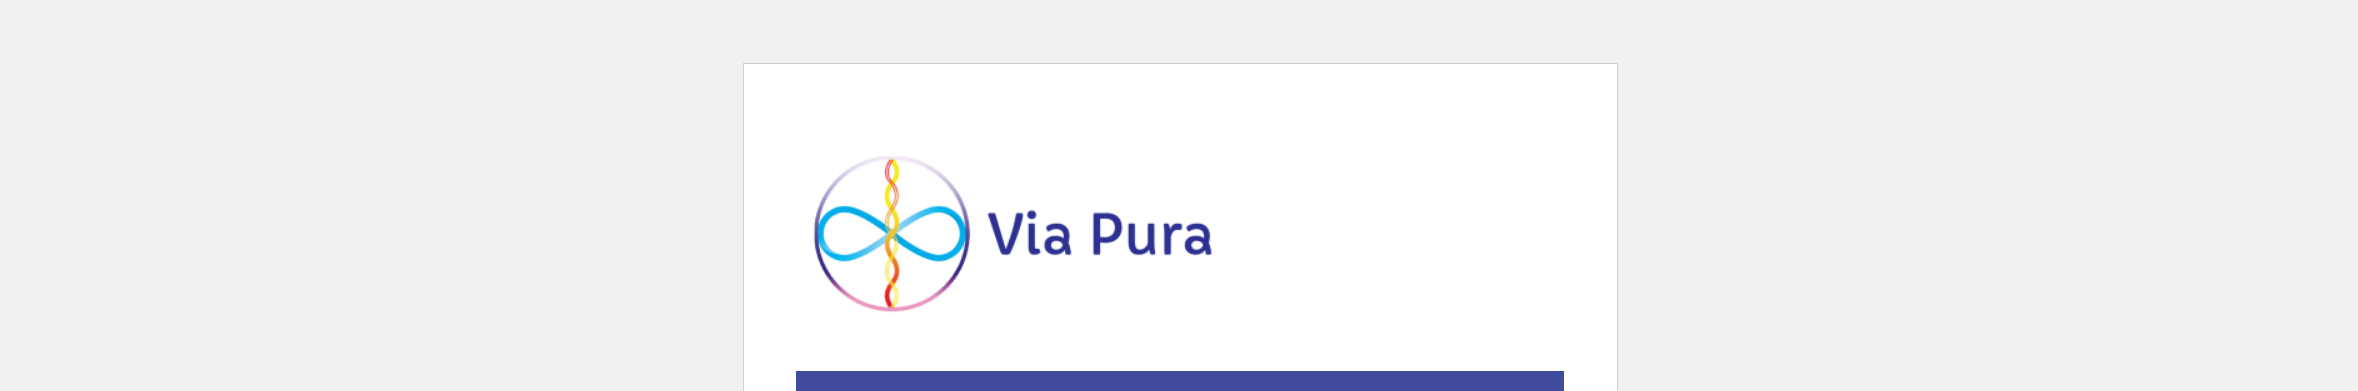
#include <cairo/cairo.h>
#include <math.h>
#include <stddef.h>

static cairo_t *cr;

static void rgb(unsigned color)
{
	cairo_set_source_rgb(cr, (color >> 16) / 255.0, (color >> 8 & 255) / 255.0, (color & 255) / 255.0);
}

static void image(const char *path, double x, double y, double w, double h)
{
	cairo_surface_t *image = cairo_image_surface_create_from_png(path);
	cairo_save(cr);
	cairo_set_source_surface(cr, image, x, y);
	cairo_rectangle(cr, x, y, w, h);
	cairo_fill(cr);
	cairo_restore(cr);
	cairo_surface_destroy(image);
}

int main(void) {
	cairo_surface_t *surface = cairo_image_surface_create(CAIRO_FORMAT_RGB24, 2358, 391);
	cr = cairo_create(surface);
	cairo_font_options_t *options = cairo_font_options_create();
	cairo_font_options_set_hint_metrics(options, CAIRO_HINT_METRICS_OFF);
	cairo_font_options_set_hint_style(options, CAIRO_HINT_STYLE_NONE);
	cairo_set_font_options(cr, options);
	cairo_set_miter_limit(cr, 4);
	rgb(0xf1f1f1);
	cairo_paint(cr);
	rgb(0xffffff);
	cairo_rectangle(cr, 743.5, 63.5, 874, 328);
	cairo_fill_preserve(cr);
	rgb(0xccd0d4);
	cairo_set_line_width(cr, 1);
	cairo_stroke(cr);
	image("img/1.png", 813, 156, 400, 157);
	rgb(0x404c9b);
	cairo_rectangle(cr, 796, 371, 768, 20);
	cairo_fill(cr);
	cairo_surface_write_to_png(surface, "page.png");
	cairo_font_options_destroy(options);
	cairo_destroy(cr);
	cairo_surface_destroy(surface);
	return 0;
}
